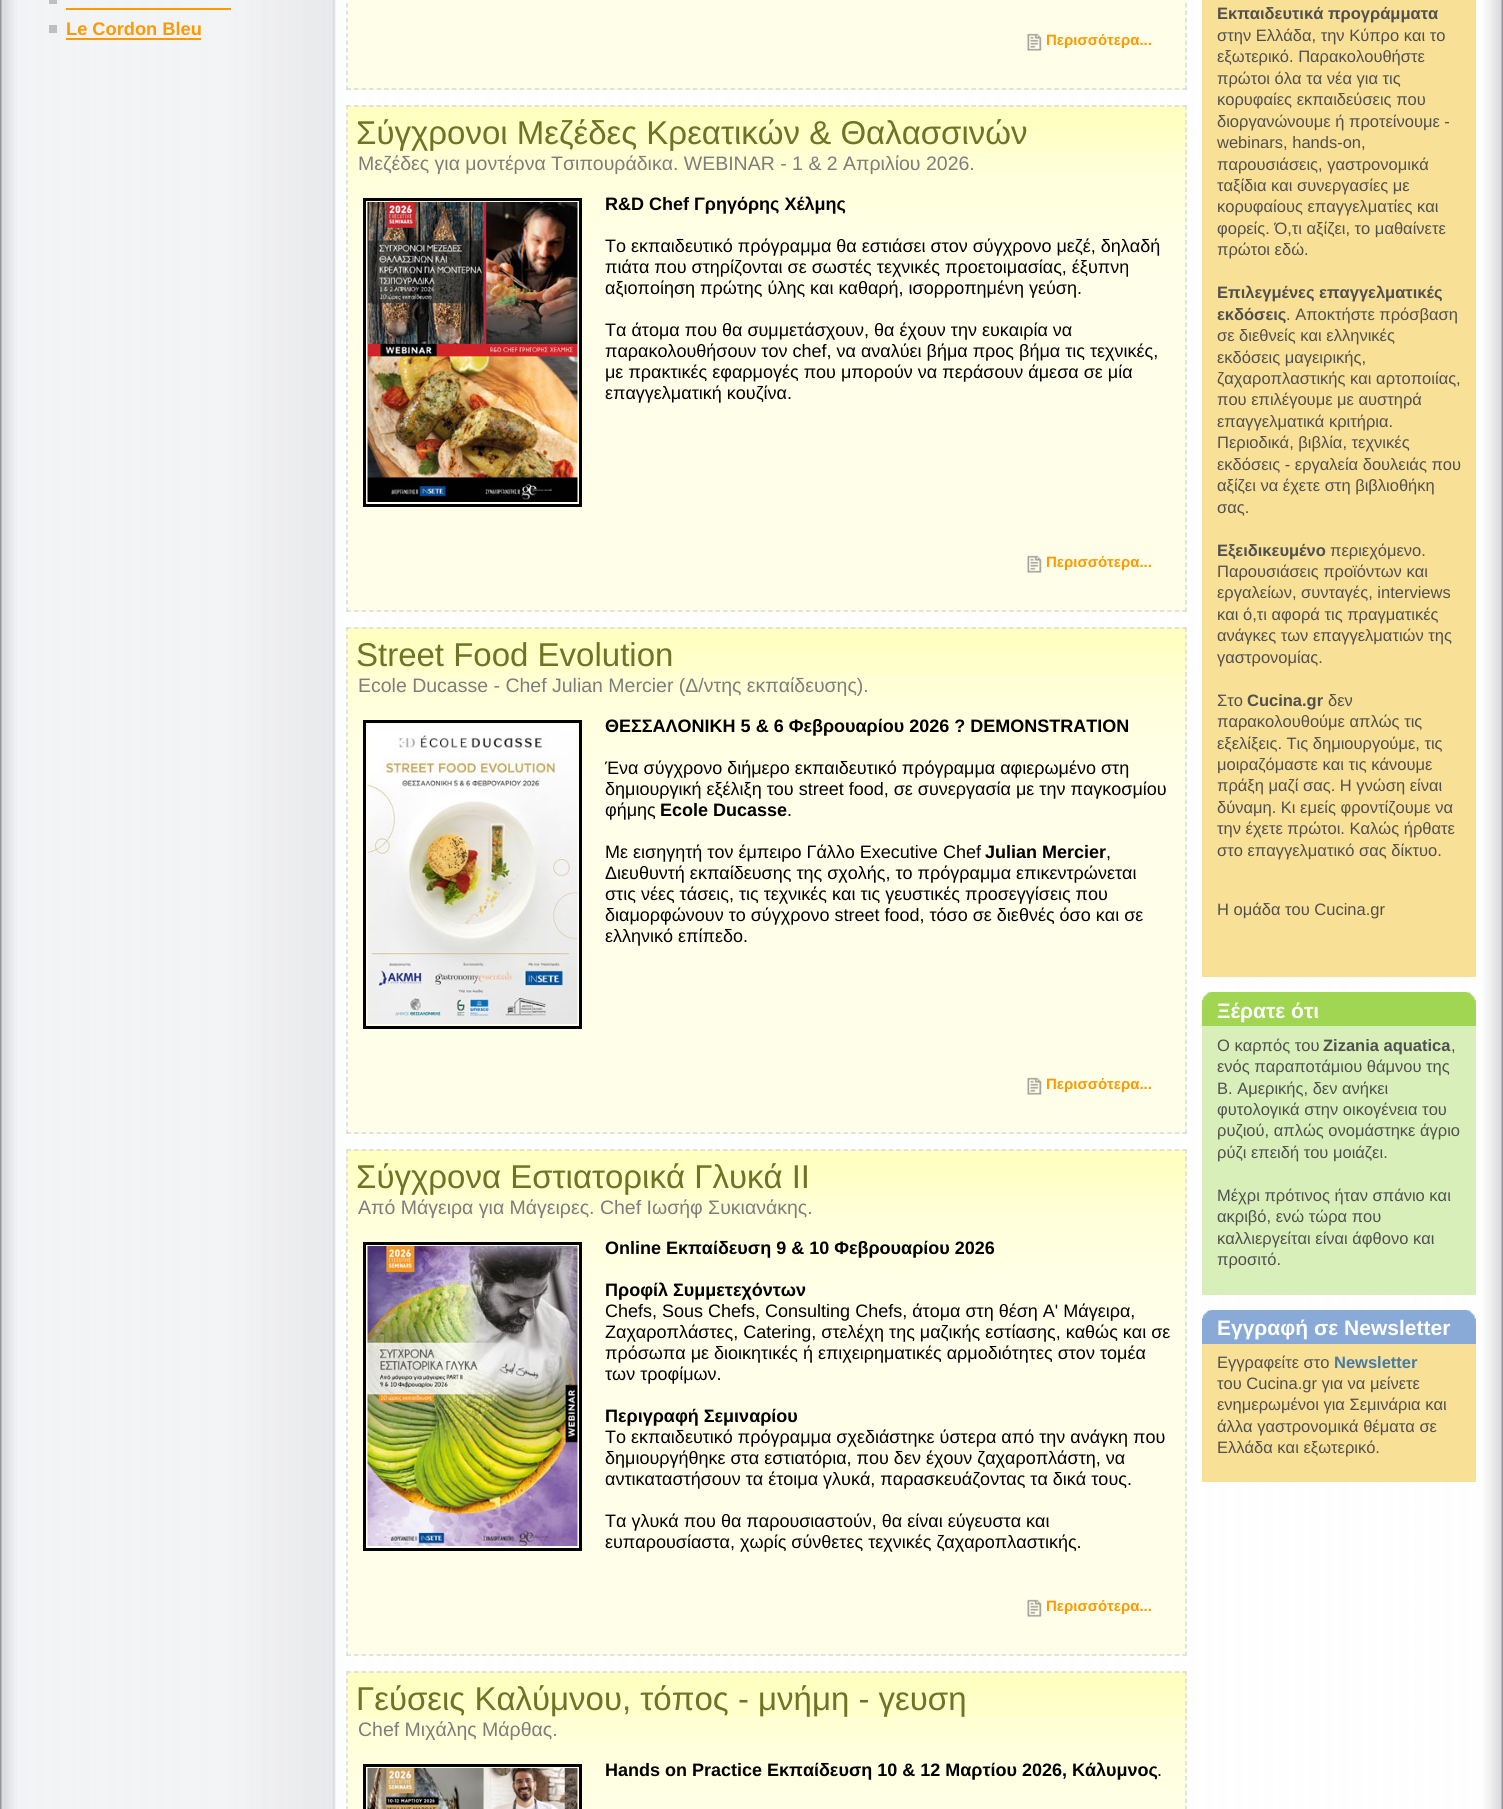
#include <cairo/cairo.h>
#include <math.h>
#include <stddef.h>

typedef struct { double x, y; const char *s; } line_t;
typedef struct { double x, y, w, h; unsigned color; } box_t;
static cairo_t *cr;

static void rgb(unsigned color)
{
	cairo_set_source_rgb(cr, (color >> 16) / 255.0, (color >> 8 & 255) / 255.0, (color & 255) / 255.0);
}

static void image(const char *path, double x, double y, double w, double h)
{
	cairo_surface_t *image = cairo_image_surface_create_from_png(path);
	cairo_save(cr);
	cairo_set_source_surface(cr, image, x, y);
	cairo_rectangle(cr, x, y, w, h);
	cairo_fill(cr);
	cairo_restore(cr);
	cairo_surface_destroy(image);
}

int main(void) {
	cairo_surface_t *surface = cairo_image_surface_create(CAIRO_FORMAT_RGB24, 1503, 1809);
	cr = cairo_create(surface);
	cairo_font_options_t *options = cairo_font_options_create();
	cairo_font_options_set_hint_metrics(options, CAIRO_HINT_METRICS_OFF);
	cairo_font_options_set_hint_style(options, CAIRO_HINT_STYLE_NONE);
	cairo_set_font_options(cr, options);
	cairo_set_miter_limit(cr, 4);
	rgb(0xffffff);
	cairo_paint(cr);
	cairo_rectangle(cr, 1, -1, 1501, 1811);
	rgb(0x969696);
	cairo_stroke(cr);
	image("img/1.png", 1, 0, 1501, 1809);
	{
		static const box_t items[] = {
			{49, 0, 8, 4, 0xbfbfbf},
			{66, 8, 165, 2, 0xff9900},
			{49, 25, 8, 8, 0xbfbfbf},
			{66, 38, 135, 2, 0xff9900},
			{1202, 0, 274, 977, 0xf8e096},
			{1202, 1026, 274, 269, 0xd9efb9},
			{1202, 992, 274, 34, 0xa0d651},
		};
		for (size_t i = 0; i < sizeof items / sizeof *items; i++) {
			rgb(items[i].color);
			cairo_rectangle(cr, items[i].x, items[i].y, items[i].w, items[i].h);
			cairo_fill(cr);
		}
	}
	image("img/2.png", 1202, 992, 9, 9);
	image("img/3.png", 1466, 992, 10, 13);
	rgb(0xf8e096);
	cairo_rectangle(cr, 1202, 1344, 274, 138);
	cairo_fill(cr);
	rgb(0x89aad6);
	cairo_rectangle(cr, 1202, 1310, 274, 34);
	cairo_fill(cr);
	image("img/4.png", 1202, 1310, 9, 9);
	image("img/5.png", 1466, 1310, 10, 13);
	rgb(0xffffe9);
	cairo_rectangle(cr, 347, 0, 840, 90);
	cairo_fill(cr);
	cairo_new_path(cr);
	cairo_move_to(cr, 1186, -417);
	cairo_line_to(cr, 1186, 90);
	rgb(0xdadada);
	cairo_set_line_width(cr, 1.5);
	cairo_set_dash(cr, (double[]){4.5, 3}, 2, 0);
	cairo_stroke(cr);
	cairo_new_path(cr);
	cairo_move_to(cr, 346.5, 89);
	cairo_line_to(cr, 1186.5, 89);
	cairo_set_dash(cr, (double[]){4.5, 3.03}, 2, 0);
	cairo_stroke(cr);
	cairo_new_path(cr);
	cairo_move_to(cr, 347, -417);
	cairo_line_to(cr, 347, 90);
	cairo_set_dash(cr, (double[]){4.5, 3}, 2, 0);
	cairo_stroke(cr);
	image("img/6.png", 1027, 33, 15, 18);
	rgb(0xffffe9);
	cairo_rectangle(cr, 347, 105, 840, 507);
	cairo_fill(cr);
	image("img/7.png", 346, 106, 841, 174);
	cairo_new_path(cr);
	cairo_move_to(cr, 346.5, 106);
	cairo_line_to(cr, 1186.5, 106);
	rgb(0xdadada);
	cairo_set_dash(cr, (double[]){4.5, 3.03}, 2, 0);
	cairo_stroke(cr);
	cairo_new_path(cr);
	cairo_move_to(cr, 1186, 105);
	cairo_line_to(cr, 1186, 612);
	cairo_set_dash(cr, (double[]){4.5, 3}, 2, 0);
	cairo_stroke(cr);
	cairo_new_path(cr);
	cairo_move_to(cr, 346.5, 611);
	cairo_line_to(cr, 1186.5, 611);
	cairo_set_dash(cr, (double[]){4.5, 3.03}, 2, 0);
	cairo_stroke(cr);
	cairo_new_path(cr);
	cairo_move_to(cr, 347, 105);
	cairo_line_to(cr, 347, 612);
	cairo_set_dash(cr, (double[]){4.5, 3}, 2, 0);
	cairo_stroke(cr);
	rgb(0xffffe9);
	cairo_rectangle(cr, 356, 152, 829, 1);
	cairo_fill(cr);
	image("img/8.png", 356, 114, 829, 39);
	cairo_rectangle(cr, 364.5, 199.5, 216, 306);
	rgb(0x000000);
	cairo_set_line_width(cr, 3);
	cairo_set_dash(cr, NULL, 0, 0);
	cairo_stroke(cr);
	image("img/9.png", 367, 202, 211, 300);
	image("img/6.png", 1027, 555, 15, 18);
	rgb(0xffffe9);
	cairo_rectangle(cr, 347, 627, 840, 507);
	cairo_fill(cr);
	image("img/7.png", 346, 628, 841, 174);
	cairo_new_path(cr);
	cairo_move_to(cr, 346.5, 628);
	cairo_line_to(cr, 1186.5, 628);
	rgb(0xdadada);
	cairo_set_line_width(cr, 1.5);
	cairo_set_dash(cr, (double[]){4.5, 3.03}, 2, 0);
	cairo_stroke(cr);
	cairo_new_path(cr);
	cairo_move_to(cr, 1186, 627);
	cairo_line_to(cr, 1186, 1134);
	cairo_set_dash(cr, (double[]){4.5, 3}, 2, 0);
	cairo_stroke(cr);
	cairo_new_path(cr);
	cairo_move_to(cr, 346.5, 1133);
	cairo_line_to(cr, 1186.5, 1133);
	cairo_set_dash(cr, (double[]){4.5, 3.03}, 2, 0);
	cairo_stroke(cr);
	cairo_new_path(cr);
	cairo_move_to(cr, 347, 627);
	cairo_line_to(cr, 347, 1134);
	cairo_set_dash(cr, (double[]){4.5, 3}, 2, 0);
	cairo_stroke(cr);
	rgb(0xffffe9);
	cairo_rectangle(cr, 356, 674, 829, 1);
	cairo_fill(cr);
	image("img/8.png", 356, 636, 829, 39);
	cairo_rectangle(cr, 364.5, 721.5, 216, 306);
	rgb(0x000000);
	cairo_set_line_width(cr, 3);
	cairo_set_dash(cr, NULL, 0, 0);
	cairo_stroke(cr);
	image("img/10.png", 367, 724, 211, 300);
	image("img/6.png", 1027, 1077, 15, 18);
	rgb(0xffffe9);
	cairo_rectangle(cr, 347, 1149, 840, 507);
	cairo_fill(cr);
	image("img/7.png", 346, 1150, 841, 174);
	cairo_new_path(cr);
	cairo_move_to(cr, 346.5, 1150);
	cairo_line_to(cr, 1186.5, 1150);
	rgb(0xdadada);
	cairo_set_line_width(cr, 1.5);
	cairo_set_dash(cr, (double[]){4.5, 3.03}, 2, 0);
	cairo_stroke(cr);
	cairo_new_path(cr);
	cairo_move_to(cr, 1186, 1149);
	cairo_line_to(cr, 1186, 1656);
	cairo_set_dash(cr, (double[]){4.5, 3}, 2, 0);
	cairo_stroke(cr);
	cairo_new_path(cr);
	cairo_move_to(cr, 346.5, 1655);
	cairo_line_to(cr, 1186.5, 1655);
	cairo_set_dash(cr, (double[]){4.5, 3.03}, 2, 0);
	cairo_stroke(cr);
	cairo_new_path(cr);
	cairo_move_to(cr, 347, 1149);
	cairo_line_to(cr, 347, 1656);
	cairo_set_dash(cr, (double[]){4.5, 3}, 2, 0);
	cairo_stroke(cr);
	rgb(0xffffe9);
	cairo_rectangle(cr, 356, 1196, 829, 1);
	cairo_fill(cr);
	image("img/8.png", 356, 1158, 829, 39);
	cairo_rectangle(cr, 364.5, 1243.5, 216, 306);
	rgb(0x000000);
	cairo_set_line_width(cr, 3);
	cairo_set_dash(cr, NULL, 0, 0);
	cairo_stroke(cr);
	image("img/11.png", 367, 1246, 211, 300);
	image("img/6.png", 1027, 1599, 15, 18);
	rgb(0xffffe9);
	cairo_rectangle(cr, 347, 1671, 840, 138);
	cairo_fill(cr);
	image("img/12.png", 346, 1672, 841, 137);
	cairo_new_path(cr);
	cairo_move_to(cr, 346.5, 1672);
	cairo_line_to(cr, 1186.5, 1672);
	rgb(0xdadada);
	cairo_set_line_width(cr, 1.5);
	cairo_set_dash(cr, (double[]){4.5, 3.03}, 2, 0);
	cairo_stroke(cr);
	cairo_new_path(cr);
	cairo_move_to(cr, 1186, 1671);
	cairo_line_to(cr, 1186, 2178);
	cairo_set_dash(cr, (double[]){4.5, 3}, 2, 0);
	cairo_stroke(cr);
	cairo_new_path(cr);
	cairo_move_to(cr, 347, 1671);
	cairo_line_to(cr, 347, 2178);
	cairo_stroke(cr);
	rgb(0xffffe9);
	cairo_rectangle(cr, 356, 1718, 829, 1);
	cairo_fill(cr);
	image("img/8.png", 356, 1680, 829, 39);
	cairo_rectangle(cr, 364.5, 1765.5, 216, 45);
	rgb(0x000000);
	cairo_set_line_width(cr, 3);
	cairo_set_dash(cr, NULL, 0, 0);
	cairo_stroke(cr);
	image("img/13.png", 367, 1768, 211, 41);
	cairo_select_font_face(cr, "Liberation Sans", CAIRO_FONT_SLANT_NORMAL, CAIRO_FONT_WEIGHT_BOLD);
	cairo_set_font_size(cr, 18.25);
	rgb(0xff9900);
	cairo_move_to(cr, 66, 35);
	cairo_show_text(cr, "Le Cordon Bleu");
	cairo_set_font_size(cr, 16.5);
	rgb(0x505050);
	cairo_move_to(cr, 1217, 19);
	cairo_show_text(cr, "Εκπαιδευτικά προγράμματα");
	cairo_select_font_face(cr, "Liberation Sans", CAIRO_FONT_SLANT_NORMAL, CAIRO_FONT_WEIGHT_NORMAL);
	{
		static const line_t items[] = {
			{1217, 41, "στην Ελλάδα, την Κύπρο και το"},
			{1217, 62, "εξωτερικό. Παρακολουθήστε"},
			{1217, 84, "πρώτοι όλα τα νέα για τις"},
			{1217, 105, "κορυφαίες εκπαιδεύσεις που"},
			{1217, 127, "διοργανώνουμε ή προτείνουμε -"},
			{1217, 148, "webinars, hands-on,"},
			{1217, 170, "παρουσιάσεις, γαστρονομικά"},
			{1217, 191, "ταξίδια και συνεργασίες με"},
			{1217, 212, "κορυφαίους επαγγελματίες και"},
			{1217, 234, "φορείς. Ό,τι αξίζει, το μαθαίνετε"},
			{1217, 255, "πρώτοι εδώ."},
		};
		for (size_t i = 0; i < sizeof items / sizeof *items; i++) {
			cairo_move_to(cr, items[i].x, items[i].y);
			cairo_show_text(cr, items[i].s);
		}
	}
	cairo_select_font_face(cr, "Liberation Sans", CAIRO_FONT_SLANT_NORMAL, CAIRO_FONT_WEIGHT_BOLD);
	cairo_move_to(cr, 1217, 298);
	cairo_show_text(cr, "Επιλεγμένες επαγγελματικές");
	cairo_move_to(cr, 1217, 320);
	cairo_show_text(cr, "εκδόσεις");
	cairo_select_font_face(cr, "Liberation Sans", CAIRO_FONT_SLANT_NORMAL, CAIRO_FONT_WEIGHT_NORMAL);
	{
		static const line_t items[] = {
			{1286, 320, ". Αποκτήστε πρόσβαση"},
			{1217, 341, "σε διεθνείς και ελληνικές"},
			{1217, 363, "εκδόσεις μαγειρικής,"},
			{1217, 384, "ζαχαροπλαστικής και αρτοποιίας,"},
			{1217, 405, "που επιλέγουμε με αυστηρά"},
			{1217, 427, "επαγγελματικά κριτήρια."},
			{1217, 448, "Περιοδικά, βιβλία, τεχνικές"},
			{1217, 470, "εκδόσεις - εργαλεία δουλειάς που"},
			{1217, 491, "αξίζει να έχετε στη βιβλιοθήκη"},
			{1217, 513, "σας."},
		};
		for (size_t i = 0; i < sizeof items / sizeof *items; i++) {
			cairo_move_to(cr, items[i].x, items[i].y);
			cairo_show_text(cr, items[i].s);
		}
	}
	cairo_select_font_face(cr, "Liberation Sans", CAIRO_FONT_SLANT_NORMAL, CAIRO_FONT_WEIGHT_BOLD);
	cairo_move_to(cr, 1217, 556);
	cairo_show_text(cr, "Εξειδικευμένο");
	cairo_select_font_face(cr, "Liberation Sans", CAIRO_FONT_SLANT_NORMAL, CAIRO_FONT_WEIGHT_NORMAL);
	{
		static const line_t items[] = {
			{1330, 556, "περιεχόμενο."},
			{1217, 577, "Παρουσιάσεις προϊόντων και"},
			{1217, 598, "εργαλείων, συνταγές, interviews"},
			{1217, 620, "και ό,τι αφορά τις πραγματικές"},
			{1217, 641, "ανάγκες των επαγγελματιών της"},
			{1217, 663, "γαστρονομίας."},
			{1217, 706, "Στο"},
		};
		for (size_t i = 0; i < sizeof items / sizeof *items; i++) {
			cairo_move_to(cr, items[i].x, items[i].y);
			cairo_show_text(cr, items[i].s);
		}
	}
	cairo_select_font_face(cr, "Liberation Sans", CAIRO_FONT_SLANT_NORMAL, CAIRO_FONT_WEIGHT_BOLD);
	cairo_move_to(cr, 1247, 706);
	cairo_show_text(cr, "Cucina.gr");
	cairo_select_font_face(cr, "Liberation Sans", CAIRO_FONT_SLANT_NORMAL, CAIRO_FONT_WEIGHT_NORMAL);
	{
		static const line_t items[] = {
			{1328, 706, "δεν"},
			{1217, 727, "παρακολουθούμε απλώς τις"},
			{1217, 749, "εξελίξεις. Τις δημιουργούμε, τις"},
			{1217, 770, "μοιραζόμαστε και τις κάνουμε"},
			{1217, 791, "πράξη μαζί σας. Η γνώση είναι"},
			{1217, 813, "δύναμη. Κι εμείς φροντίζουμε να"},
			{1217, 834, "την έχετε πρώτοι. Καλώς ήρθατε"},
			{1217, 856, "στο επαγγελματικό σας δίκτυο."},
			{1217, 915, "Η ομάδα του Cucina.gr"},
		};
		for (size_t i = 0; i < sizeof items / sizeof *items; i++) {
			cairo_move_to(cr, items[i].x, items[i].y);
			cairo_show_text(cr, items[i].s);
		}
	}
	cairo_select_font_face(cr, "Liberation Sans", CAIRO_FONT_SLANT_NORMAL, CAIRO_FONT_WEIGHT_BOLD);
	cairo_set_font_size(cr, 21);
	rgb(0xffffff);
	cairo_move_to(cr, 1217, 1018);
	cairo_show_text(cr, "Ξέρατε ότι");
	cairo_select_font_face(cr, "Liberation Sans", CAIRO_FONT_SLANT_NORMAL, CAIRO_FONT_WEIGHT_NORMAL);
	cairo_set_font_size(cr, 16.5);
	rgb(0x505050);
	cairo_move_to(cr, 1217, 1051);
	cairo_show_text(cr, "Ο καρπός του");
	cairo_select_font_face(cr, "Liberation Sans", CAIRO_FONT_SLANT_NORMAL, CAIRO_FONT_WEIGHT_BOLD);
	cairo_move_to(cr, 1323, 1051);
	cairo_show_text(cr, "Zizania aquatica");
	cairo_select_font_face(cr, "Liberation Sans", CAIRO_FONT_SLANT_NORMAL, CAIRO_FONT_WEIGHT_NORMAL);
	{
		static const line_t items[] = {
			{1451, 1051, ","},
			{1217, 1072, "ενός παραποτάμιου θάμνου της"},
			{1217, 1094, "Β. Αμερικής, δεν ανήκει"},
			{1217, 1115, "φυτολογικά στην οικογένεια του"},
			{1217, 1136, "ρυζιού, απλώς ονομάστηκε άγριο"},
			{1217, 1158, "ρύζι επειδή του μοιάζει."},
			{1217, 1201, "Μέχρι πρότινος ήταν σπάνιο και"},
			{1217, 1222, "ακριβό, ενώ τώρα που"},
			{1217, 1244, "καλλιεργείται είναι άφθονο και"},
			{1217, 1265, "προσιτό."},
		};
		for (size_t i = 0; i < sizeof items / sizeof *items; i++) {
			cairo_move_to(cr, items[i].x, items[i].y);
			cairo_show_text(cr, items[i].s);
		}
	}
	cairo_select_font_face(cr, "Liberation Sans", CAIRO_FONT_SLANT_NORMAL, CAIRO_FONT_WEIGHT_BOLD);
	cairo_set_font_size(cr, 21);
	rgb(0xffffff);
	cairo_move_to(cr, 1217, 1335);
	cairo_show_text(cr, "Εγγραφή σε Newsletter");
	cairo_select_font_face(cr, "Liberation Sans", CAIRO_FONT_SLANT_NORMAL, CAIRO_FONT_WEIGHT_NORMAL);
	cairo_set_font_size(cr, 16.5);
	rgb(0x505050);
	cairo_move_to(cr, 1217, 1368);
	cairo_show_text(cr, "Εγγραφείτε στο");
	cairo_select_font_face(cr, "Liberation Sans", CAIRO_FONT_SLANT_NORMAL, CAIRO_FONT_WEIGHT_BOLD);
	rgb(0x467aa7);
	cairo_move_to(cr, 1334, 1368);
	cairo_show_text(cr, "Newsletter");
	cairo_select_font_face(cr, "Liberation Sans", CAIRO_FONT_SLANT_NORMAL, CAIRO_FONT_WEIGHT_NORMAL);
	rgb(0x505050);
	{
		static const line_t items[] = {
			{1217, 1389, "του Cucina.gr για να μείνετε"},
			{1217, 1410, "ενημερωμένοι για Σεμινάρια και"},
			{1217, 1432, "άλλα γαστρονομικά θέματα σε"},
			{1217, 1453, "Ελλάδα και εξωτερικό."},
		};
		for (size_t i = 0; i < sizeof items / sizeof *items; i++) {
			cairo_move_to(cr, items[i].x, items[i].y);
			cairo_show_text(cr, items[i].s);
		}
	}
	cairo_select_font_face(cr, "Liberation Sans", CAIRO_FONT_SLANT_NORMAL, CAIRO_FONT_WEIGHT_BOLD);
	cairo_set_font_size(cr, 15);
	rgb(0xff9900);
	cairo_move_to(cr, 1046, 45);
	cairo_show_text(cr, "Περισσότερα...");
	cairo_select_font_face(cr, "Liberation Sans", CAIRO_FONT_SLANT_NORMAL, CAIRO_FONT_WEIGHT_NORMAL);
	cairo_set_font_size(cr, 33);
	rgb(0x6c7425);
	cairo_move_to(cr, 356, 144);
	cairo_show_text(cr, "Σύγχρονοι Μεζέδες Κρεατικών & Θαλασσινών");
	cairo_set_font_size(cr, 19.5);
	rgb(0x7d7d7d);
	cairo_move_to(cr, 358, 170);
	cairo_show_text(cr, "Μεζέδες για μοντέρνα Τσιπουράδικα. WEBINAR - 1 & 2 Απριλίου 2026.");
	cairo_select_font_face(cr, "Liberation Sans", CAIRO_FONT_SLANT_NORMAL, CAIRO_FONT_WEIGHT_BOLD);
	cairo_set_font_size(cr, 18);
	rgb(0x000000);
	cairo_move_to(cr, 605, 210);
	cairo_show_text(cr, "R&D Chef Γρηγόρης Χέλμης");
	cairo_select_font_face(cr, "Liberation Sans", CAIRO_FONT_SLANT_NORMAL, CAIRO_FONT_WEIGHT_NORMAL);
	{
		static const line_t items[] = {
			{605, 252, "Το εκπαιδευτικό πρόγραμμα θα εστιάσει στον σύγχρονο μεζέ, δηλαδή"},
			{605, 273, "πιάτα που στηρίζονται σε σωστές τεχνικές προετοιμασίας, έξυπνη"},
			{605, 294, "αξιοποίηση πρώτης ύλης και καθαρή, ισορροπημένη γεύση."},
			{605, 336, "Τα άτομα που θα συμμετάσχουν, θα έχουν την ευκαιρία να"},
			{605, 357, "παρακολουθήσουν τον chef, να αναλύει βήμα προς βήμα τις τεχνικές,"},
			{605, 378, "με πρακτικές εφαρμογές που μπορούν να περάσουν άμεσα σε μία"},
			{605, 399, "επαγγελματική κουζίνα."},
		};
		for (size_t i = 0; i < sizeof items / sizeof *items; i++) {
			cairo_move_to(cr, items[i].x, items[i].y);
			cairo_show_text(cr, items[i].s);
		}
	}
	cairo_select_font_face(cr, "Liberation Sans", CAIRO_FONT_SLANT_NORMAL, CAIRO_FONT_WEIGHT_BOLD);
	cairo_set_font_size(cr, 15);
	rgb(0xff9900);
	cairo_move_to(cr, 1046, 567);
	cairo_show_text(cr, "Περισσότερα...");
	cairo_select_font_face(cr, "Liberation Sans", CAIRO_FONT_SLANT_NORMAL, CAIRO_FONT_WEIGHT_NORMAL);
	cairo_set_font_size(cr, 33);
	rgb(0x6c7425);
	cairo_move_to(cr, 356, 666);
	cairo_show_text(cr, "Street Food Evolution");
	cairo_set_font_size(cr, 19.5);
	rgb(0x7d7d7d);
	cairo_move_to(cr, 358, 692);
	cairo_show_text(cr, "Ecole Ducasse - Chef Julian Mercier (Δ/ντης εκπαίδευσης).");
	cairo_select_font_face(cr, "Liberation Sans", CAIRO_FONT_SLANT_NORMAL, CAIRO_FONT_WEIGHT_BOLD);
	cairo_set_font_size(cr, 18);
	rgb(0x000000);
	cairo_move_to(cr, 605, 732);
	cairo_show_text(cr, "ΘΕΣΣΑΛΟΝΙΚΗ 5 & 6 Φεβρουαρίου 2026 ? DEMONSTRATION");
	cairo_select_font_face(cr, "Liberation Sans", CAIRO_FONT_SLANT_NORMAL, CAIRO_FONT_WEIGHT_NORMAL);
	{
		static const line_t items[] = {
			{605, 774, "Ένα σύγχρονο διήμερο εκπαιδευτικό πρόγραμμα αφιερωμένο στη"},
			{605, 795, "δημιουργική εξέλιξη του street food, σε συνεργασία με την παγκοσμίου"},
			{605, 816, "φήμης"},
		};
		for (size_t i = 0; i < sizeof items / sizeof *items; i++) {
			cairo_move_to(cr, items[i].x, items[i].y);
			cairo_show_text(cr, items[i].s);
		}
	}
	cairo_select_font_face(cr, "Liberation Sans", CAIRO_FONT_SLANT_NORMAL, CAIRO_FONT_WEIGHT_BOLD);
	cairo_move_to(cr, 660, 816);
	cairo_show_text(cr, "Ecole Ducasse");
	cairo_select_font_face(cr, "Liberation Sans", CAIRO_FONT_SLANT_NORMAL, CAIRO_FONT_WEIGHT_NORMAL);
	cairo_move_to(cr, 787, 816);
	cairo_show_text(cr, ".");
	cairo_move_to(cr, 605, 858);
	cairo_show_text(cr, "Με εισηγητή τον έμπειρο Γάλλο Executive Chef");
	cairo_select_font_face(cr, "Liberation Sans", CAIRO_FONT_SLANT_NORMAL, CAIRO_FONT_WEIGHT_BOLD);
	cairo_move_to(cr, 985, 858);
	cairo_show_text(cr, "Julian Mercier");
	cairo_select_font_face(cr, "Liberation Sans", CAIRO_FONT_SLANT_NORMAL, CAIRO_FONT_WEIGHT_NORMAL);
	{
		static const line_t items[] = {
			{1106, 858, ","},
			{605, 879, "Διευθυντή εκπαίδευσης της σχολής, το πρόγραμμα επικεντρώνεται"},
			{605, 900, "στις νέες τάσεις, τις τεχνικές και τις γευστικές προσεγγίσεις που"},
			{605, 921, "διαμορφώνουν το σύγχρονο street food, τόσο σε διεθνές όσο και σε"},
			{605, 942, "ελληνικό επίπεδο."},
		};
		for (size_t i = 0; i < sizeof items / sizeof *items; i++) {
			cairo_move_to(cr, items[i].x, items[i].y);
			cairo_show_text(cr, items[i].s);
		}
	}
	cairo_select_font_face(cr, "Liberation Sans", CAIRO_FONT_SLANT_NORMAL, CAIRO_FONT_WEIGHT_BOLD);
	cairo_set_font_size(cr, 15);
	rgb(0xff9900);
	cairo_move_to(cr, 1046, 1089);
	cairo_show_text(cr, "Περισσότερα...");
	cairo_select_font_face(cr, "Liberation Sans", CAIRO_FONT_SLANT_NORMAL, CAIRO_FONT_WEIGHT_NORMAL);
	cairo_set_font_size(cr, 33);
	rgb(0x6c7425);
	cairo_move_to(cr, 356, 1188);
	cairo_show_text(cr, "Σύγχρονα Εστιατορικά Γλυκά ΙΙ");
	cairo_set_font_size(cr, 19.5);
	rgb(0x7d7d7d);
	cairo_move_to(cr, 358, 1214);
	cairo_show_text(cr, "Από Μάγειρα για Μάγειρες. Chef Ιωσήφ Συκιανάκης.");
	cairo_select_font_face(cr, "Liberation Sans", CAIRO_FONT_SLANT_NORMAL, CAIRO_FONT_WEIGHT_BOLD);
	cairo_set_font_size(cr, 18);
	rgb(0x000000);
	cairo_move_to(cr, 605, 1254);
	cairo_show_text(cr, "Online Εκπαίδευση 9 & 10 Φεβρουαρίου 2026");
	cairo_move_to(cr, 605, 1296);
	cairo_show_text(cr, "Προφίλ Συμμετεχόντων");
	cairo_select_font_face(cr, "Liberation Sans", CAIRO_FONT_SLANT_NORMAL, CAIRO_FONT_WEIGHT_NORMAL);
	{
		static const line_t items[] = {
			{605, 1317, "Chefs, Sous Chefs, Consulting Chefs, άτομα στη θέση Α' Μάγειρα,"},
			{605, 1338, "Ζαχαροπλάστες, Catering, στελέχη της μαζικής εστίασης, καθώς και σε"},
			{605, 1359, "πρόσωπα με διοικητικές ή επιχειρηματικές αρμοδιότητες στον τομέα"},
			{605, 1380, "των τροφίμων."},
		};
		for (size_t i = 0; i < sizeof items / sizeof *items; i++) {
			cairo_move_to(cr, items[i].x, items[i].y);
			cairo_show_text(cr, items[i].s);
		}
	}
	cairo_select_font_face(cr, "Liberation Sans", CAIRO_FONT_SLANT_NORMAL, CAIRO_FONT_WEIGHT_BOLD);
	cairo_move_to(cr, 605, 1422);
	cairo_show_text(cr, "Περιγραφή Σεμιναρίου");
	cairo_select_font_face(cr, "Liberation Sans", CAIRO_FONT_SLANT_NORMAL, CAIRO_FONT_WEIGHT_NORMAL);
	{
		static const line_t items[] = {
			{605, 1443, "Το εκπαιδευτικό πρόγραμμα σχεδιάστηκε ύστερα από την ανάγκη που"},
			{605, 1464, "δημιουργήθηκε στα εστιατόρια, που δεν έχουν ζαχαροπλάστη, να"},
			{605, 1485, "αντικαταστήσουν τα έτοιμα γλυκά, παρασκευάζοντας τα δικά τους."},
			{605, 1527, "Τα γλυκά που θα παρουσιαστούν, θα είναι εύγευστα και"},
			{605, 1548, "ευπαρουσίαστα, χωρίς σύνθετες τεχνικές ζαχαροπλαστικής."},
		};
		for (size_t i = 0; i < sizeof items / sizeof *items; i++) {
			cairo_move_to(cr, items[i].x, items[i].y);
			cairo_show_text(cr, items[i].s);
		}
	}
	cairo_select_font_face(cr, "Liberation Sans", CAIRO_FONT_SLANT_NORMAL, CAIRO_FONT_WEIGHT_BOLD);
	cairo_set_font_size(cr, 15);
	rgb(0xff9900);
	cairo_move_to(cr, 1046, 1611);
	cairo_show_text(cr, "Περισσότερα...");
	cairo_select_font_face(cr, "Liberation Sans", CAIRO_FONT_SLANT_NORMAL, CAIRO_FONT_WEIGHT_NORMAL);
	cairo_set_font_size(cr, 33);
	rgb(0x6c7425);
	cairo_move_to(cr, 356, 1710);
	cairo_show_text(cr, "Γεύσεις Καλύμνου, τόπος - μνήμη - γευση");
	cairo_set_font_size(cr, 19.5);
	rgb(0x7d7d7d);
	cairo_move_to(cr, 358, 1736);
	cairo_show_text(cr, "Chef Μιχάλης Μάρθας.");
	cairo_select_font_face(cr, "Liberation Sans", CAIRO_FONT_SLANT_NORMAL, CAIRO_FONT_WEIGHT_BOLD);
	cairo_set_font_size(cr, 18);
	rgb(0x000000);
	cairo_move_to(cr, 605, 1776);
	cairo_show_text(cr, "Hands on Practice Εκπαίδευση 10 & 12 Μαρτίου 2026, Κάλυμνος");
	cairo_select_font_face(cr, "Liberation Sans", CAIRO_FONT_SLANT_NORMAL, CAIRO_FONT_WEIGHT_NORMAL);
	cairo_move_to(cr, 1157, 1776);
	cairo_show_text(cr, ".");
	cairo_surface_write_to_png(surface, "page.png");
	cairo_font_options_destroy(options);
	cairo_destroy(cr);
	cairo_surface_destroy(surface);
	return 0;
}
